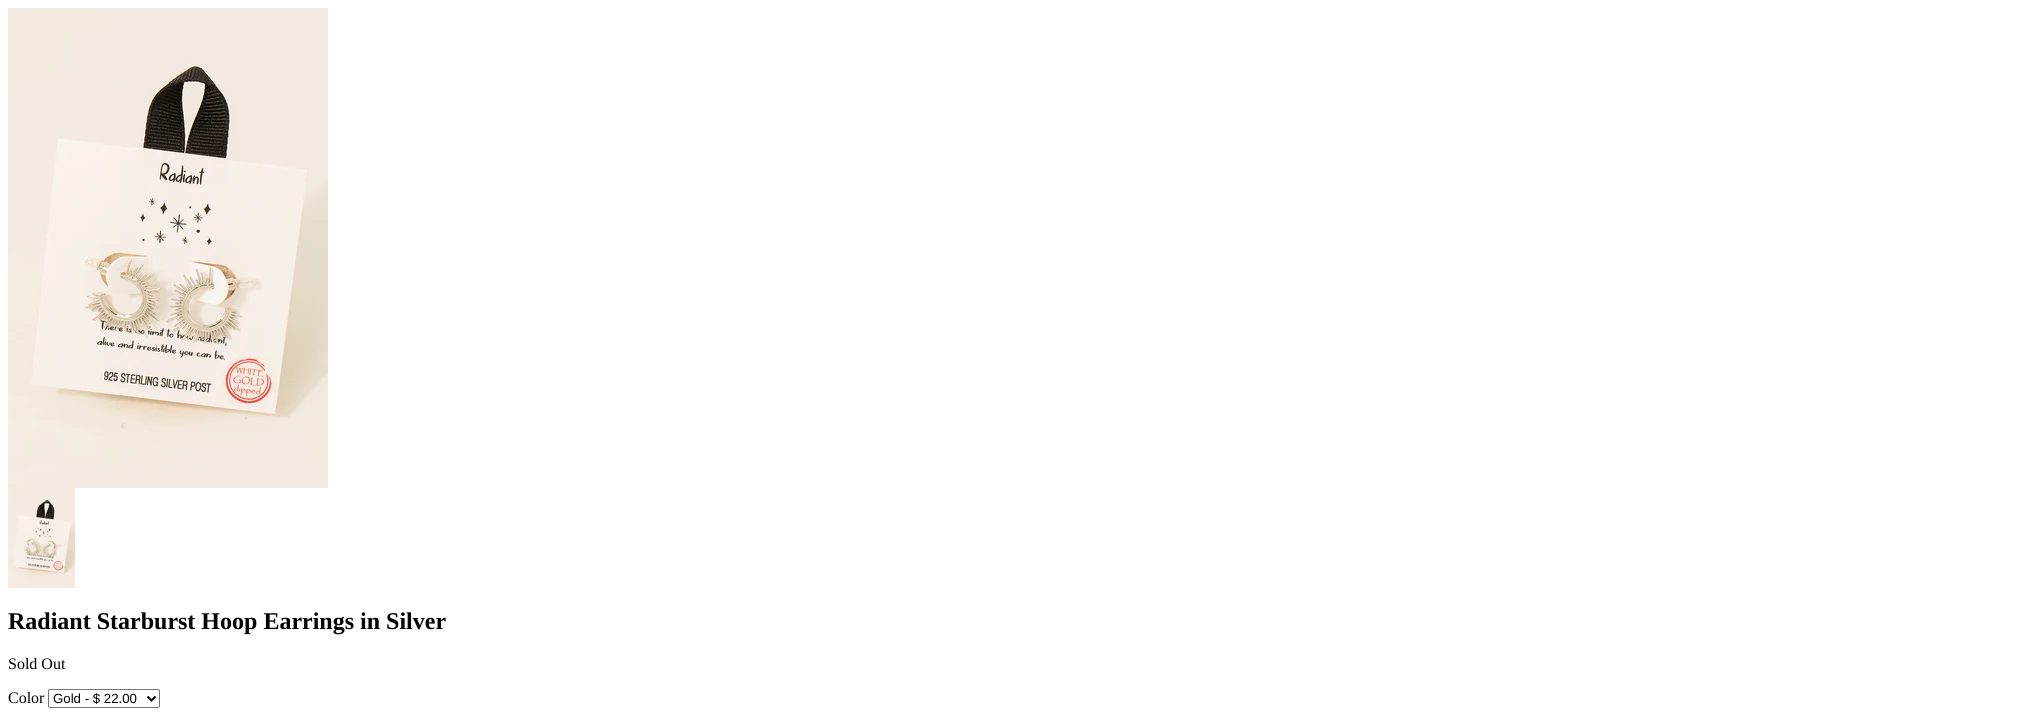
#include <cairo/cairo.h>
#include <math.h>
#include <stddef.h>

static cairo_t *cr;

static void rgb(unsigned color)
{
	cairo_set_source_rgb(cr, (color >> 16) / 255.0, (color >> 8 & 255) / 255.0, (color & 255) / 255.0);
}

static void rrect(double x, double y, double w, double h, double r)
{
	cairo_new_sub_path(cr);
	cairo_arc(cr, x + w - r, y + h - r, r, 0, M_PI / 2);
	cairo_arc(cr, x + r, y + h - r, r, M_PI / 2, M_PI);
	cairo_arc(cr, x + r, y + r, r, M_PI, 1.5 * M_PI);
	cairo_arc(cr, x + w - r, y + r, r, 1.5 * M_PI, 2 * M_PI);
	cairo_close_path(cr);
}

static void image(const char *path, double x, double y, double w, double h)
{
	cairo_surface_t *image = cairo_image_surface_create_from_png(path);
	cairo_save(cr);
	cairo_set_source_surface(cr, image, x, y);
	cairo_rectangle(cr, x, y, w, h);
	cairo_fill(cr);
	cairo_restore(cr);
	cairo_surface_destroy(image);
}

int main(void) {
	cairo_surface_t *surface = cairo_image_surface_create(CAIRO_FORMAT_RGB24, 2033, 723);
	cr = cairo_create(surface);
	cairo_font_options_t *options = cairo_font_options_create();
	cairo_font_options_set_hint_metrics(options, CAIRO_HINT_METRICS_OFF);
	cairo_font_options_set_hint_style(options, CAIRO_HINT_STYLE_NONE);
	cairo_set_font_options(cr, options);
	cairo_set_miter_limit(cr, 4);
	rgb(0xffffff);
	cairo_paint(cr);
	image("img/1.png", 8, 8, 320, 480);
	image("img/2.png", 8, 488, 67, 100);
	rrect(48.5, 689.5, 111, 18, 1.5);
	rgb(0x767676);
	cairo_set_line_width(cr, 1);
	cairo_stroke(cr);
	cairo_new_path(cr);
	cairo_move_to(cr, 147.5, 696.5);
	cairo_line_to(cr, 151.5, 700.5);
	cairo_line_to(cr, 155.5, 696.5);
	rgb(0x000000);
	cairo_set_line_width(cr, 2);
	cairo_stroke(cr);
	cairo_select_font_face(cr, "Liberation Serif", CAIRO_FONT_SLANT_NORMAL, CAIRO_FONT_WEIGHT_BOLD);
	cairo_set_font_size(cr, 24);
	cairo_move_to(cr, 8, 629);
	cairo_show_text(cr, "Radiant Starburst Hoop Earrings in Silver");
	cairo_select_font_face(cr, "Liberation Serif", CAIRO_FONT_SLANT_NORMAL, CAIRO_FONT_WEIGHT_NORMAL);
	cairo_set_font_size(cr, 16);
	cairo_move_to(cr, 8, 669);
	cairo_show_text(cr, "Sold Out");
	cairo_move_to(cr, 8, 703);
	cairo_show_text(cr, "Color");
	cairo_select_font_face(cr, "Liberation Sans", CAIRO_FONT_SLANT_NORMAL, CAIRO_FONT_WEIGHT_NORMAL);
	cairo_set_font_size(cr, 13.25);
	cairo_move_to(cr, 53, 703);
	cairo_show_text(cr, "Gold - $ 22.00");
	cairo_surface_write_to_png(surface, "page.png");
	cairo_font_options_destroy(options);
	cairo_destroy(cr);
	cairo_surface_destroy(surface);
	return 0;
}
